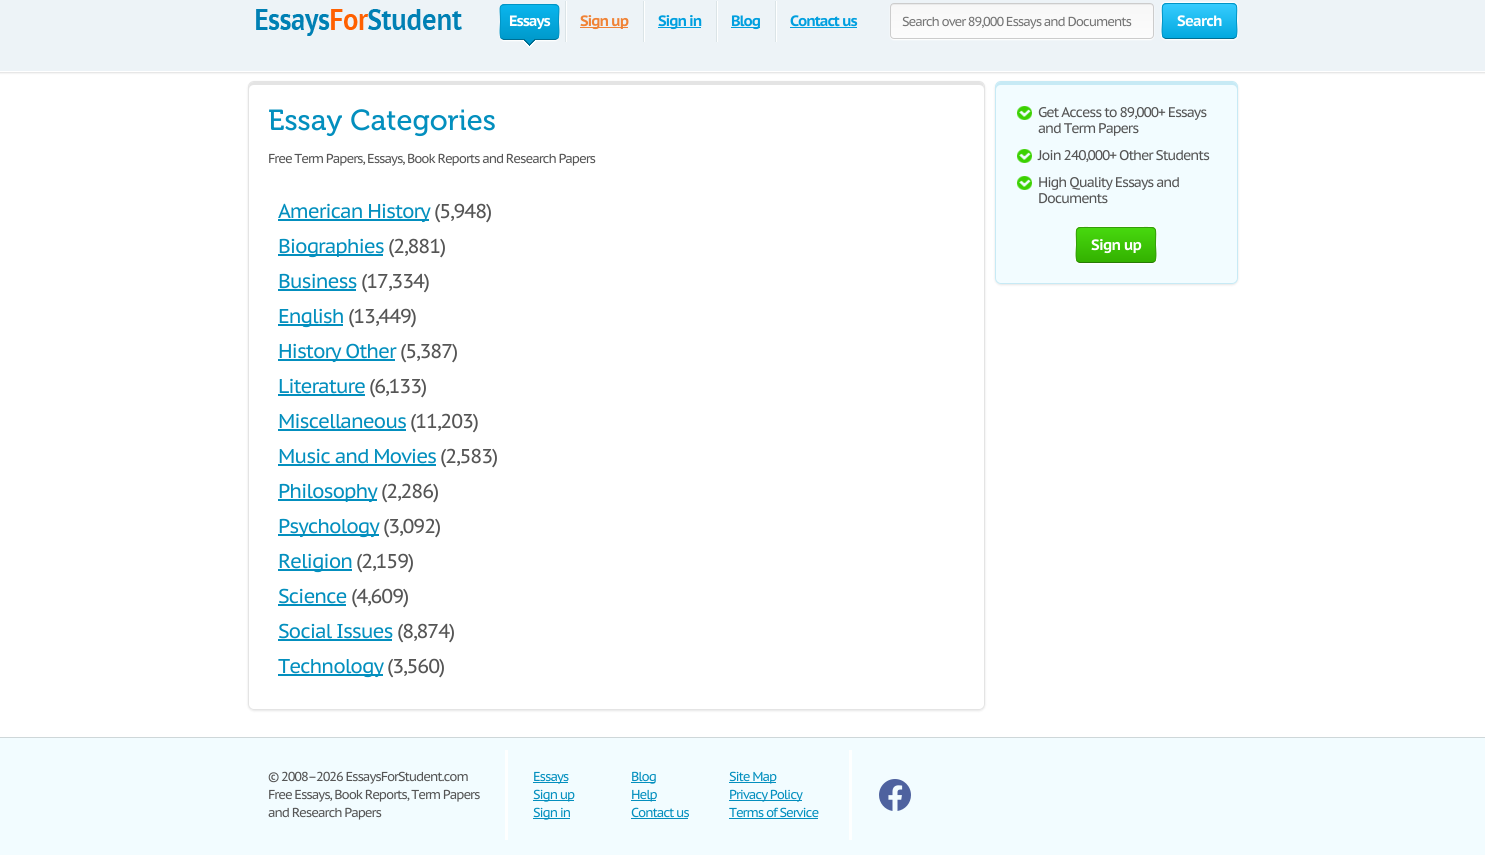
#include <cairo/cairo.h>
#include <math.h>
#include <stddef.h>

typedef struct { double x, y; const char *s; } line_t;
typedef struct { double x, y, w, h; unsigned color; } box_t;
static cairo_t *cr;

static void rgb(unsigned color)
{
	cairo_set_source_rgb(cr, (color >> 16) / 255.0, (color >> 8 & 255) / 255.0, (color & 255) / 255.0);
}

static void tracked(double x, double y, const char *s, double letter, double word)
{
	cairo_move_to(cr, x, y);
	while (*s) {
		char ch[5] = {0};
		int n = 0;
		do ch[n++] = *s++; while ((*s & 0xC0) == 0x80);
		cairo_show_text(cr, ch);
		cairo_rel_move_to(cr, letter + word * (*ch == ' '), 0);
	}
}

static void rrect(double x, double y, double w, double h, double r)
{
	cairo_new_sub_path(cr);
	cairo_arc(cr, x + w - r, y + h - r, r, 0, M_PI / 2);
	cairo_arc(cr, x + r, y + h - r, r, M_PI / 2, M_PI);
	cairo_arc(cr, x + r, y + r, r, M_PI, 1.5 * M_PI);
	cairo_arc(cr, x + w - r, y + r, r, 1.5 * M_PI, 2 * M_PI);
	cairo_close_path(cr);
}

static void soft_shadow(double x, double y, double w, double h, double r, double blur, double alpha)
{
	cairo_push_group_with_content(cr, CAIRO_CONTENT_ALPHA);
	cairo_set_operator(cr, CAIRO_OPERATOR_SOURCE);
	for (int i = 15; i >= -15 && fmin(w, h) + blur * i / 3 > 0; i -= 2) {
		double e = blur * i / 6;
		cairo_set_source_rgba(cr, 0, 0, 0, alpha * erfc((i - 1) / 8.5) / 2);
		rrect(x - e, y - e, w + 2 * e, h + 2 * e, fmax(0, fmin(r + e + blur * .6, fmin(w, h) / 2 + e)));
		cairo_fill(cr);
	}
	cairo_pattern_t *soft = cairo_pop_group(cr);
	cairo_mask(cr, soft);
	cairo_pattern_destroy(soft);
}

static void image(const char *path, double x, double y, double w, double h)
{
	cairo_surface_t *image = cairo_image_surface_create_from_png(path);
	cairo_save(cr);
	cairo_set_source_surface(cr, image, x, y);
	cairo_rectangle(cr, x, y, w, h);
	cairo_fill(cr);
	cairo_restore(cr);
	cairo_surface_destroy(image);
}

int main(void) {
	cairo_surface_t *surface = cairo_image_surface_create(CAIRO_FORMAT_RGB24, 1485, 855);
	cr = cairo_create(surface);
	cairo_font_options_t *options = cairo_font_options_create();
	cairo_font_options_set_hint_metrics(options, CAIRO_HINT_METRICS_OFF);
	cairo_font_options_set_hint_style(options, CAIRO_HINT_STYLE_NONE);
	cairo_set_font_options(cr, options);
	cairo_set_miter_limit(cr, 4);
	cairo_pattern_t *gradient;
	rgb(0xffffff);
	cairo_paint(cr);
	rgb(0x000000);
	soft_shadow(-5, -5, 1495, 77, 0, 1.5, 0.25);
	rgb(0xedf3f7);
	cairo_rectangle(cr, -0.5, -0.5, 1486, 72);
	cairo_fill_preserve(cr);
	rgb(0xffffff);
	cairo_set_line_width(cr, 1);
	cairo_stroke(cr);
	image("img/1.png", 256, 9, 206, 27);
	rgb(0xffffff);
	soft_shadow(500, 5, 59, 36, 4, 0.5, 1);
	cairo_save(cr);
	rrect(500, 4, 59, 36, 4);
	cairo_clip(cr);
	gradient = cairo_pattern_create_linear(530, -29, 530, 5);
	cairo_pattern_add_color_stop_rgba(gradient, 0, 0.039, 0.71, 0.929, 1);
	cairo_pattern_add_color_stop_rgba(gradient, 1, 0, 0.604, 0.8, 1);
	cairo_set_source(cr, gradient);
	cairo_pattern_destroy(gradient);
	cairo_rectangle(cr, 500, 4, 59, 1);
	cairo_fill(cr);
	gradient = cairo_pattern_create_linear(530, 5, 530, 39);
	cairo_pattern_add_color_stop_rgba(gradient, 0, 0.039, 0.71, 0.929, 1);
	cairo_pattern_add_color_stop_rgba(gradient, 1, 0, 0.604, 0.8, 1);
	cairo_set_source(cr, gradient);
	cairo_pattern_destroy(gradient);
	cairo_rectangle(cr, 500, 5, 59, 34);
	cairo_fill(cr);
	cairo_restore(cr);
	cairo_new_path(cr);
	cairo_move_to(cr, 557.5, 38.5);
	cairo_line_to(cr, 555.5, 39.5);
	cairo_line_to(cr, 503.5, 39.5);
	cairo_line_to(cr, 501.5, 38.5);
	rgb(0x006e92);
	cairo_stroke(cr);
	cairo_new_path(cr);
	cairo_move_to(cr, 501.5, 38.5);
	cairo_curve_to(cr, 499, 36, 500.5, 25, 500.5, 22);
	cairo_curve_to(cr, 500.5, 4.5, 496.5, 4.5, 512.5, 4.5);
	cairo_line_to(cr, 546.5, 4.5);
	cairo_curve_to(cr, 562.5, 4.5, 558.5, 4.5, 558.5, 22);
	cairo_curve_to(cr, 558.5, 25, 560, 36, 557.5, 38.5);
	rgb(0x0094c5);
	cairo_stroke(cr);
	image("img/2.png", 523, 39, 13, 9);
	image("img/3.png", 565, 1, 2, 41);
	rgb(0xf08336);
	cairo_rectangle(cr, 580, 27, 48, 1);
	cairo_fill(cr);
	image("img/3.png", 643, 1, 2, 41);
	rgb(0x009fdf);
	cairo_rectangle(cr, 658, 27, 43, 1);
	cairo_fill(cr);
	image("img/3.png", 716, 1, 2, 41);
	cairo_rectangle(cr, 731, 27, 29, 1);
	cairo_fill(cr);
	image("img/3.png", 775, 1, 2, 41);
	cairo_rectangle(cr, 790, 27, 67, 1);
	cairo_fill(cr);
	rgb(0xffffff);
	soft_shadow(890, 4, 264, 36, 4, 0.5, 1);
	cairo_save(cr);
	rrect(890, 3, 264, 36, 4);
	cairo_clip(cr);
	gradient = cairo_pattern_create_linear(1022, 4, 1022, 38);
	cairo_pattern_add_color_stop_rgba(gradient, 0, 0.969, 0.969, 0.969, 1);
	cairo_pattern_add_color_stop_rgba(gradient, 1, 0.988, 0.988, 0.988, 1);
	cairo_set_source(cr, gradient);
	cairo_pattern_destroy(gradient);
	cairo_rectangle(cr, 890, 4, 264, 34);
	cairo_fill(cr);
	cairo_restore(cr);
	rgb(0xeaeaea);
	cairo_new_path(cr);
	cairo_move_to(cr, 894, 5);
	cairo_line_to(cr, 1151, 5);
	cairo_line_to(cr, 1153, 6);
	cairo_line_to(cr, 1153, 8);
	cairo_line_to(cr, 1153, 7);
	cairo_curve_to(cr, 1153, 5, 1152, 4, 1150, 4);
	cairo_line_to(cr, 894, 4);
	cairo_curve_to(cr, 892, 4, 891, 5, 891, 7);
	cairo_line_to(cr, 891, 8);
	cairo_curve_to(cr, 891, 6, 892, 5, 894, 5);
	cairo_close_path(cr);
	cairo_fill(cr);
	rrect(890.5, 3.5, 263, 35, 3.5);
	rgb(0xcccccc);
	cairo_stroke(cr);
	rgb(0xffffff);
	soft_shadow(1161, 2, 77, 38, 5, 0.5, 1);
	cairo_save(cr);
	rrect(1162, 3, 75, 36, 4);
	cairo_clip(cr);
	gradient = cairo_pattern_create_linear(1200, -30, 1200, 4);
	cairo_pattern_add_color_stop_rgba(gradient, 0, 0.212, 0.8, 0.996, 1);
	cairo_pattern_add_color_stop_rgba(gradient, 1, 0.008, 0.659, 0.875, 1);
	cairo_set_source(cr, gradient);
	cairo_pattern_destroy(gradient);
	cairo_rectangle(cr, 1162, 3, 75, 1);
	cairo_fill(cr);
	gradient = cairo_pattern_create_linear(1200, 4, 1200, 38);
	cairo_pattern_add_color_stop_rgba(gradient, 0, 0.212, 0.8, 0.996, 1);
	cairo_pattern_add_color_stop_rgba(gradient, 1, 0.008, 0.659, 0.875, 1);
	cairo_set_source(cr, gradient);
	cairo_pattern_destroy(gradient);
	cairo_rectangle(cr, 1162, 4, 75, 34);
	cairo_fill(cr);
	cairo_restore(cr);
	cairo_new_path(cr);
	cairo_move_to(cr, 1235.5, 37.5);
	cairo_line_to(cr, 1233.5, 38.5);
	cairo_line_to(cr, 1165.5, 38.5);
	cairo_line_to(cr, 1163.5, 37.5);
	rgb(0x006e92);
	cairo_stroke(cr);
	cairo_new_path(cr);
	cairo_move_to(cr, 1163.5, 37.5);
	cairo_curve_to(cr, 1161, 35, 1162.5, 24, 1162.5, 21);
	cairo_curve_to(cr, 1162.5, 2, 1159, 3.5, 1177, 3.5);
	cairo_line_to(cr, 1222, 3.5);
	cairo_curve_to(cr, 1240, 3.5, 1236.5, 2, 1236.5, 21);
	cairo_curve_to(cr, 1236.5, 24, 1238, 35, 1235.5, 37.5);
	rgb(0x0094c5);
	cairo_stroke(cr);
	rgb(0x000000);
	soft_shadow(248, 82, 737, 629, 6, 1, 0.1);
	rgb(0xffffff);
	rrect(248, 81, 737, 629, 6);
	cairo_fill(cr);
	rgb(0xe4e4e4);
	cairo_new_path(cr);
	cairo_move_to(cr, 254, 85);
	cairo_line_to(cr, 979, 85);
	cairo_curve_to(cr, 982, 85, 984, 87, 984, 90);
	cairo_curve_to(cr, 984, 86, 984, 82, 979, 82);
	cairo_line_to(cr, 254, 82);
	cairo_curve_to(cr, 249, 82, 249, 86, 249, 90);
	cairo_curve_to(cr, 249, 87, 251, 85, 254, 85);
	cairo_close_path(cr);
	cairo_fill(cr);
	rrect(248.5, 81.5, 736, 628, 5.5);
	cairo_stroke(cr);
	{
		static const box_t items[] = {
			{278, 219, 151, 2, 0x038fbe},
			{278, 254, 105, 2, 0x038fbe},
			{278, 289, 78, 2, 0x038fbe},
			{278, 324, 65, 2, 0x038fbe},
			{278, 359, 117, 2, 0x038fbe},
			{278, 394, 87, 2, 0x038fbe},
			{278, 429, 128, 2, 0x038fbe},
			{278, 464, 158, 2, 0x038fbe},
			{278, 499, 99, 2, 0x038fbe},
			{278, 534, 101, 2, 0x038fbe},
			{278, 569, 74, 2, 0x038fbe},
			{278, 604, 68, 2, 0x038fbe},
			{278, 639, 114, 2, 0x038fbe},
			{278, 674, 105, 2, 0x038fbe},
		};
		for (size_t i = 0; i < sizeof items / sizeof *items; i++) {
			rgb(items[i].color);
			cairo_rectangle(cr, items[i].x, items[i].y, items[i].w, items[i].h);
			cairo_fill(cr);
		}
	}
	rgb(0x000000);
	soft_shadow(995, 82, 243, 203, 6, 1, 0.1);
	rgb(0xf2fcff);
	rrect(995, 81, 243, 203, 6);
	cairo_fill(cr);
	rgb(0xc7eaf5);
	cairo_new_path(cr);
	cairo_move_to(cr, 1001, 85);
	cairo_line_to(cr, 1232, 85);
	cairo_curve_to(cr, 1235, 85, 1237, 87, 1237, 90);
	cairo_line_to(cr, 1237, 87);
	cairo_curve_to(cr, 1237, 84, 1235, 82, 1232, 82);
	cairo_line_to(cr, 1001, 82);
	cairo_curve_to(cr, 998, 82, 996, 84, 996, 87);
	cairo_line_to(cr, 996, 90);
	cairo_curve_to(cr, 996, 87, 998, 85, 1001, 85);
	cairo_close_path(cr);
	cairo_fill(cr);
	rrect(995.5, 81.5, 242, 202, 5.5);
	cairo_stroke(cr);
	image("img/4.png", 1017, 106, 15, 14);
	image("img/4.png", 1017, 149, 15, 14);
	image("img/4.png", 1017, 176, 15, 14);
	rgb(0xffffff);
	soft_shadow(1075, 226, 82, 38, 5, 0.5, 1);
	cairo_save(cr);
	rrect(1076, 227, 80, 36, 4);
	cairo_clip(cr);
	gradient = cairo_pattern_create_linear(1116, 194, 1116, 228);
	cairo_pattern_add_color_stop_rgba(gradient, 0, 0.278, 0.847, 0.055, 1);
	cairo_pattern_add_color_stop_rgba(gradient, 1, 0.2, 0.694, 0, 1);
	cairo_set_source(cr, gradient);
	cairo_pattern_destroy(gradient);
	cairo_rectangle(cr, 1076, 227, 80, 1);
	cairo_fill(cr);
	gradient = cairo_pattern_create_linear(1116, 228, 1116, 262);
	cairo_pattern_add_color_stop_rgba(gradient, 0, 0.278, 0.847, 0.055, 1);
	cairo_pattern_add_color_stop_rgba(gradient, 1, 0.2, 0.694, 0, 1);
	cairo_set_source(cr, gradient);
	cairo_pattern_destroy(gradient);
	cairo_rectangle(cr, 1076, 228, 80, 34);
	cairo_fill(cr);
	cairo_restore(cr);
	cairo_new_path(cr);
	cairo_move_to(cr, 1154.5, 261.5);
	cairo_curve_to(cr, 1154, 262, 1153, 262.5, 1152, 262.5);
	cairo_line_to(cr, 1080, 262.5);
	cairo_curve_to(cr, 1079, 262.5, 1078, 262, 1077.5, 261.5);
	rgb(0x267b05);
	cairo_stroke(cr);
	cairo_new_path(cr);
	cairo_move_to(cr, 1077.5, 261.5);
	cairo_curve_to(cr, 1075, 259, 1076.5, 248, 1076.5, 245);
	cairo_curve_to(cr, 1076.5, 225.5, 1073, 227.5, 1092, 227.5);
	cairo_line_to(cr, 1140, 227.5);
	cairo_curve_to(cr, 1159, 227.5, 1155.5, 225.5, 1155.5, 245);
	cairo_curve_to(cr, 1155.5, 248, 1157, 259, 1154.5, 261.5);
	rgb(0x329d09);
	cairo_stroke(cr);
	{
		static const box_t items[] = {
			{0, 738, 1485, 117, 0xf2fcff},
			{0, 737, 1485, 1, 0xced7d9},
			{505, 750, 3, 90, 0xfeffff},
			{533, 782, 35, 1, 0x038fbe},
			{533, 800, 41, 1, 0x038fbe},
			{533, 818, 37, 1, 0x038fbe},
			{631, 782, 24, 1, 0x038fbe},
			{631, 800, 25, 1, 0x038fbe},
			{631, 818, 57, 1, 0x038fbe},
			{729, 782, 47, 1, 0x038fbe},
			{729, 800, 73, 1, 0x038fbe},
			{729, 818, 89, 1, 0x038fbe},
			{849, 750, 3, 90, 0xfeffff},
		};
		for (size_t i = 0; i < sizeof items / sizeof *items; i++) {
			rgb(items[i].color);
			cairo_rectangle(cr, items[i].x, items[i].y, items[i].w, items[i].h);
			cairo_fill(cr);
		}
	}
	image("img/5.png", 879, 779, 32, 32);
	cairo_select_font_face(cr, "PT Sans Caption", CAIRO_FONT_SLANT_NORMAL, CAIRO_FONT_WEIGHT_BOLD);
	cairo_set_font_size(cr, 15);
	rgb(0xffffff);
	tracked(509, 26, "Essays", -1.05, 0);
	rgb(0xf08336);
	tracked(580, 26, "Sign up", -1.05, 0);
	rgb(0x009fdf);
	{
		static const line_t items[] = {
			{658, 26, "Sign in"},
			{731, 26, "Blog"},
			{790, 26, "Contact us"},
		};
		for (size_t i = 0; i < sizeof items / sizeof *items; i++) {
			tracked(items[i].x, items[i].y, items[i].s, -1.05, 0);
		}
	}
	cairo_select_font_face(cr, "PT Sans Caption", CAIRO_FONT_SLANT_NORMAL, CAIRO_FONT_WEIGHT_NORMAL);
	cairo_set_font_size(cr, 13);
	rgb(0x757575);
	tracked(902, 26, "Search over 89,000 Essays and Documents", -1.05, 0);
	cairo_select_font_face(cr, "PT Sans Caption", CAIRO_FONT_SLANT_NORMAL, CAIRO_FONT_WEIGHT_BOLD);
	cairo_set_font_size(cr, 15);
	rgb(0xffffff);
	tracked(1177, 26, "Search", -0.75, 0);
	cairo_select_font_face(cr, "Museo", CAIRO_FONT_SLANT_NORMAL, CAIRO_FONT_WEIGHT_NORMAL);
	cairo_set_font_size(cr, 29);
	rgb(0x038fbe);
	cairo_move_to(cr, 268, 130);
	cairo_show_text(cr, "Essay Categories");
	cairo_select_font_face(cr, "PT Sans Caption", CAIRO_FONT_SLANT_NORMAL, CAIRO_FONT_WEIGHT_NORMAL);
	cairo_set_font_size(cr, 13);
	rgb(0x555555);
	tracked(268, 163, "Free Term Papers, Essays, Book Reports and Research Papers", -1.05, 0);
	cairo_set_font_size(cr, 20);
	rgb(0x038fbe);
	tracked(278, 218, "American History", -1.05, 0);
	rgb(0x555555);
	tracked(434, 218, "(5,948)", -1.05, 0);
	rgb(0x038fbe);
	tracked(278, 253, "Biographies", -1.05, 0);
	rgb(0x555555);
	tracked(388, 253, "(2,881)", -1.05, 0);
	rgb(0x038fbe);
	tracked(278, 288, "Business", -1.05, 0);
	rgb(0x555555);
	tracked(361, 288, "(17,334)", -1.05, 0);
	rgb(0x038fbe);
	tracked(278, 323, "English", -1.05, 0);
	rgb(0x555555);
	tracked(348, 323, "(13,449)", -1.05, 0);
	rgb(0x038fbe);
	tracked(278, 358, "History Other", -1.05, 0);
	rgb(0x555555);
	tracked(400, 358, "(5,387)", -1.05, 0);
	rgb(0x038fbe);
	tracked(278, 393, "Literature", -1.05, 0);
	rgb(0x555555);
	tracked(369, 393, "(6,133)", -1.05, 0);
	rgb(0x038fbe);
	tracked(278, 428, "Miscellaneous", -1.05, 0);
	rgb(0x555555);
	tracked(410, 428, "(11,203)", -1.05, 0);
	rgb(0x038fbe);
	tracked(278, 463, "Music and Movies", -1.05, 0);
	rgb(0x555555);
	tracked(440, 463, "(2,583)", -1.05, 0);
	rgb(0x038fbe);
	tracked(278, 498, "Philosophy", -1.05, 0);
	rgb(0x555555);
	tracked(381, 498, "(2,286)", -1.05, 0);
	rgb(0x038fbe);
	tracked(278, 533, "Psychology", -1.05, 0);
	rgb(0x555555);
	tracked(383, 533, "(3,092)", -1.05, 0);
	rgb(0x038fbe);
	tracked(278, 568, "Religion", -1.05, 0);
	rgb(0x555555);
	tracked(356, 568, "(2,159)", -1.05, 0);
	rgb(0x038fbe);
	tracked(278, 603, "Science", -1.05, 0);
	rgb(0x555555);
	tracked(351, 603, "(4,609)", -1.05, 0);
	rgb(0x038fbe);
	tracked(278, 638, "Social Issues", -1.05, 0);
	rgb(0x555555);
	tracked(397, 638, "(8,874)", -1.05, 0);
	rgb(0x038fbe);
	tracked(278, 673, "Technology", -1.05, 0);
	rgb(0x555555);
	tracked(387, 673, "(3,560)", -1.05, 0);
	cairo_set_font_size(cr, 14);
	{
		static const line_t items[] = {
			{1038, 117, "Get Access to 89,000+ Essays"},
			{1038, 133, "and Term Papers"},
			{1038, 160, "Join 240,000+ Other Students"},
			{1038, 187, "High Quality Essays and"},
			{1038, 203, "Documents"},
		};
		for (size_t i = 0; i < sizeof items / sizeof *items; i++) {
			tracked(items[i].x, items[i].y, items[i].s, -1.05, 0);
		}
	}
	cairo_select_font_face(cr, "PT Sans Caption", CAIRO_FONT_SLANT_NORMAL, CAIRO_FONT_WEIGHT_BOLD);
	cairo_set_font_size(cr, 15);
	rgb(0xffffff);
	tracked(1091, 250, "Sign up", -0.75, 0);
	cairo_select_font_face(cr, "PT Sans Caption", CAIRO_FONT_SLANT_NORMAL, CAIRO_FONT_WEIGHT_NORMAL);
	cairo_set_font_size(cr, 13);
	rgb(0x555555);
	{
		static const line_t items[] = {
			{268, 781, "© 2008–2026 EssaysForStudent.com"},
			{268, 799, "Free Essays, Book Reports, Term Papers"},
			{268, 817, "and Research Papers"},
		};
		for (size_t i = 0; i < sizeof items / sizeof *items; i++) {
			tracked(items[i].x, items[i].y, items[i].s, -1.05, 0);
		}
	}
	rgb(0x038fbe);
	{
		static const line_t items[] = {
			{533, 781, "Essays"},
			{533, 799, "Sign up"},
			{533, 817, "Sign in"},
			{631, 781, "Blog"},
			{631, 799, "Help"},
			{631, 817, "Contact us"},
			{729, 781, "Site Map"},
			{729, 799, "Privacy Policy"},
			{729, 817, "Terms of Service"},
		};
		for (size_t i = 0; i < sizeof items / sizeof *items; i++) {
			tracked(items[i].x, items[i].y, items[i].s, -1.05, 0);
		}
	}
	cairo_surface_write_to_png(surface, "page.png");
	cairo_font_options_destroy(options);
	cairo_destroy(cr);
	cairo_surface_destroy(surface);
	return 0;
}
